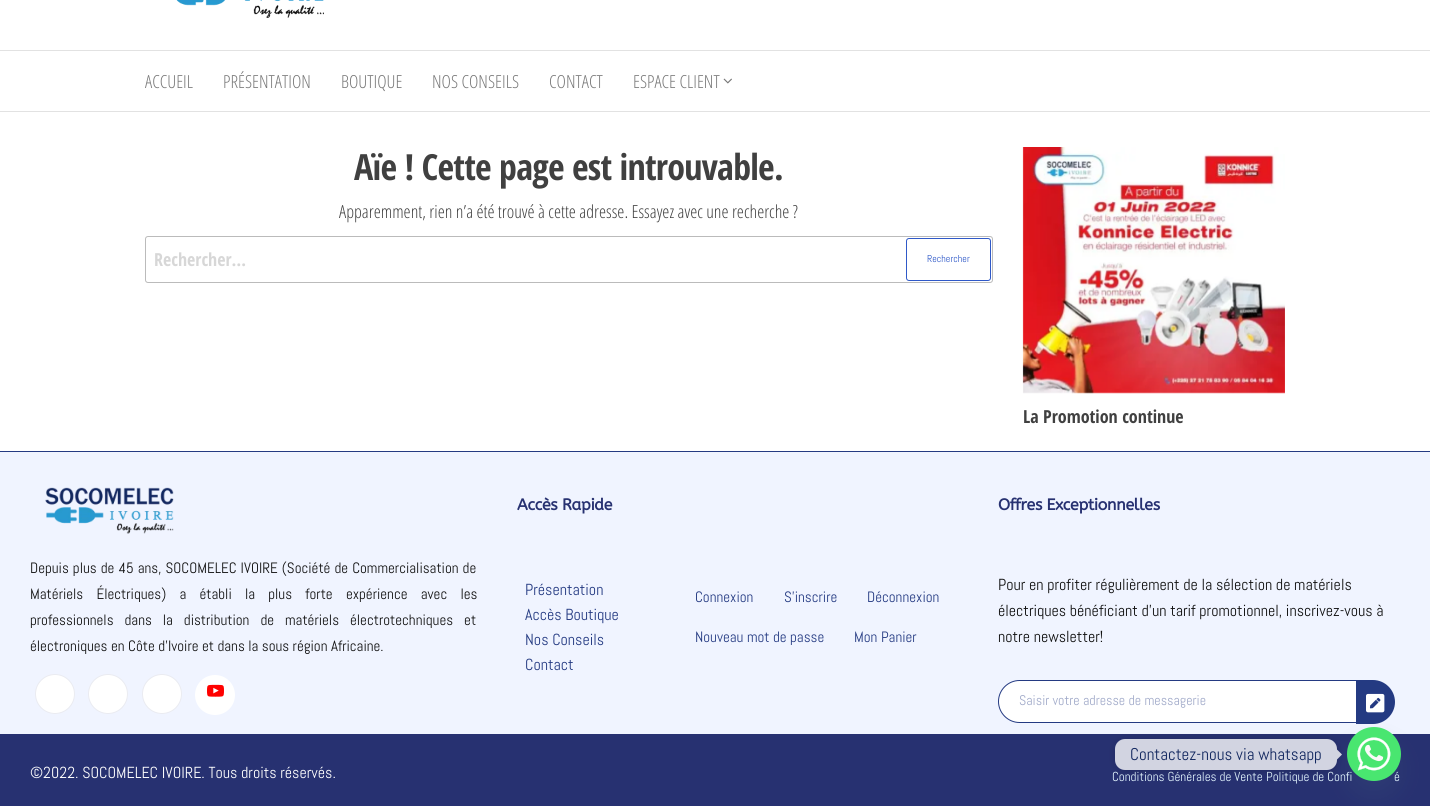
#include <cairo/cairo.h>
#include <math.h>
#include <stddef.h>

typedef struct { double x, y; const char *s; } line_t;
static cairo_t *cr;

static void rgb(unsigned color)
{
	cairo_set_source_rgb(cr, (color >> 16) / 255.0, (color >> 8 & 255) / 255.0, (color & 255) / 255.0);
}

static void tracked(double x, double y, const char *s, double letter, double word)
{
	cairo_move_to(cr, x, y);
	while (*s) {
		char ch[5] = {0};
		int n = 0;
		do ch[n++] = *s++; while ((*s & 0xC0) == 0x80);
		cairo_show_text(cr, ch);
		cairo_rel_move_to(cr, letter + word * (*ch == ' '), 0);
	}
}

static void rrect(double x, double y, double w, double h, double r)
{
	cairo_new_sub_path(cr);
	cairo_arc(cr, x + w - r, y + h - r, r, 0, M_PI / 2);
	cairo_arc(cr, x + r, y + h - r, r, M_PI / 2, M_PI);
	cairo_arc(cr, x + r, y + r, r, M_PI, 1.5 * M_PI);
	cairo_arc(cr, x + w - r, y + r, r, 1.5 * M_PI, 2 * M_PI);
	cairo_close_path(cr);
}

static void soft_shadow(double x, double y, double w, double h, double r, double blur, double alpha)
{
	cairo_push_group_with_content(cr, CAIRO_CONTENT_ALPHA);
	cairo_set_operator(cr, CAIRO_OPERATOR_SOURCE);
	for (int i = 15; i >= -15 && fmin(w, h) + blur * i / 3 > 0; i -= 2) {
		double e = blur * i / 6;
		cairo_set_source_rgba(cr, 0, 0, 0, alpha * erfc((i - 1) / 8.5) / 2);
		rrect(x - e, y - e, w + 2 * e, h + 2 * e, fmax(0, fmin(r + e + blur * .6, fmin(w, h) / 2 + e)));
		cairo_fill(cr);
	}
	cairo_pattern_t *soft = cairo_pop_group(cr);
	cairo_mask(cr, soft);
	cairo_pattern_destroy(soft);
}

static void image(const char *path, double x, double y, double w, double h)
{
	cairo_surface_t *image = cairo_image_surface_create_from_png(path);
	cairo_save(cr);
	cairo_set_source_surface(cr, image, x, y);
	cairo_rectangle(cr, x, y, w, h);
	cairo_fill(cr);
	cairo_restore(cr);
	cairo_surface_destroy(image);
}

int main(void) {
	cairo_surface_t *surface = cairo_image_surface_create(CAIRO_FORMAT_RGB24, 1430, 806);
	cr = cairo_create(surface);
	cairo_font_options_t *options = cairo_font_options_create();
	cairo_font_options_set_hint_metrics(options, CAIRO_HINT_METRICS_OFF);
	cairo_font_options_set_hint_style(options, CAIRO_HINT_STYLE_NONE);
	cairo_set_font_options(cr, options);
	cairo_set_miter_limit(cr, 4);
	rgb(0xffffff);
	cairo_paint(cr);
	image("img/1.png", 176, 0, 148, 18);
	rgb(0xe2e2e2);
	cairo_rectangle(cr, 0, 50, 1430, 1);
	cairo_fill(cr);
	cairo_rectangle(cr, 0, 111, 1430, 1);
	cairo_fill(cr);
	image("img/2.png", 723, 78, 9, 6);
	rrect(145.5, 236.5, 847, 46, 2.5);
	rgb(0xbbbbbb);
	cairo_set_line_width(cr, 1);
	cairo_stroke(cr);
	rrect(906.5, 238.5, 84, 42, 2.5);
	rgb(0x2f59c8);
	cairo_stroke(cr);
	image("img/3.png", 1022, 147, 263, 247);
	rgb(0xf0f4ff);
	cairo_rectangle(cr, 0, 452, 1430, 282);
	cairo_fill(cr);
	rgb(0x243a82);
	cairo_rectangle(cr, 0, 451, 1430, 1);
	cairo_fill(cr);
	image("img/4.png", 45, 487, 129, 47);
	rgb(0xffffff);
	cairo_arc(cr, 55, 694, 19.5, 0, 2 * M_PI);
	cairo_fill_preserve(cr);
	rgb(0xeaebf1);
	cairo_stroke(cr);
	rgb(0xffffff);
	cairo_arc(cr, 108, 694, 19.5, 0, 2 * M_PI);
	cairo_fill_preserve(cr);
	rgb(0xeaebf1);
	cairo_stroke(cr);
	rgb(0xffffff);
	cairo_arc(cr, 162, 694, 19.5, 0, 2 * M_PI);
	cairo_fill_preserve(cr);
	rgb(0xeaebf1);
	cairo_stroke(cr);
	rgb(0xffffff);
	cairo_arc(cr, 215, 695, 20, 0, 2 * M_PI);
	cairo_fill(cr);
	image("img/5.png", 207, 684, 17, 13);
	cairo_new_path(cr);
	cairo_move_to(cr, 1019.5, 680.5);
	cairo_line_to(cr, 1357.5, 680.5);
	cairo_line_to(cr, 1357.5, 722.5);
	cairo_line_to(cr, 1019.5, 722.5);
	cairo_curve_to(cr, 1008, 722.5, 998.5, 713, 998.5, 701.5);
	cairo_curve_to(cr, 998.5, 690, 1008, 680.5, 1019.5, 680.5);
	cairo_close_path(cr);
	cairo_fill_preserve(cr);
	rgb(0x243a82);
	cairo_stroke(cr);
	cairo_new_path(cr);
	cairo_move_to(cr, 1356, 680);
	cairo_line_to(cr, 1373, 680);
	cairo_curve_to(cr, 1385, 680, 1395, 690, 1395, 702);
	cairo_curve_to(cr, 1395, 714, 1385, 724, 1373, 724);
	cairo_line_to(cr, 1356, 724);
	cairo_close_path(cr);
	cairo_fill(cr);
	image("img/6.png", 1366, 693, 19, 20);
	rgb(0x273171);
	cairo_rectangle(cr, 0, 734, 1430, 72);
	cairo_fill(cr);
	rgb(0x49687e);
	soft_shadow(1347, 743, 54, 54, 27, 12, 0.16);
	cairo_select_font_face(cr, "Open Sans Condensed Light", CAIRO_FONT_SLANT_NORMAL, CAIRO_FONT_WEIGHT_NORMAL);
	cairo_set_font_size(cr, 18);
	rgb(0x777777);
	{
		static const line_t items[] = {
			{145, 88, "ACCUEIL"},
			{223, 88, "PRÉSENTATION"},
			{341, 88, "BOUTIQUE"},
			{432, 88, "NOS CONSEILS"},
			{549, 88, "CONTACT"},
			{633, 88, "ESPACE CLIENT"},
		};
		for (size_t i = 0; i < sizeof items / sizeof *items; i++) {
			cairo_move_to(cr, items[i].x, items[i].y);
			cairo_show_text(cr, items[i].s);
		}
	}
	cairo_select_font_face(cr, "Open Sans Condensed", CAIRO_FONT_SLANT_NORMAL, CAIRO_FONT_WEIGHT_BOLD);
	cairo_set_font_size(cr, 36);
	rgb(0x404040);
	tracked(354, 180, "Aïe ! Cette page est introuvable.", -0.75, 0);
	cairo_select_font_face(cr, "Open Sans Condensed Light", CAIRO_FONT_SLANT_NORMAL, CAIRO_FONT_WEIGHT_NORMAL);
	cairo_set_font_size(cr, 18);
	cairo_move_to(cr, 339, 218);
	cairo_show_text(cr, "Apparemment, rien n’a été trouvé à cette adresse. Essayez avec une recherche ?");
	cairo_select_font_face(cr, "Open Sans Condensed", CAIRO_FONT_SLANT_NORMAL, CAIRO_FONT_WEIGHT_BOLD);
	rgb(0xd7d7d7);
	cairo_move_to(cr, 154, 266);
	cairo_show_text(cr, "Rechercher…");
	cairo_select_font_face(cr, "Abel", CAIRO_FONT_SLANT_NORMAL, CAIRO_FONT_WEIGHT_NORMAL);
	cairo_set_font_size(cr, 10);
	rgb(0x2f59c8);
	cairo_move_to(cr, 927, 262);
	cairo_show_text(cr, "Rechercher");
	cairo_select_font_face(cr, "Open Sans Condensed", CAIRO_FONT_SLANT_NORMAL, CAIRO_FONT_WEIGHT_BOLD);
	cairo_set_font_size(cr, 18);
	rgb(0x404040);
	cairo_move_to(cr, 1023, 423);
	cairo_show_text(cr, "La Promotion continue");
	cairo_select_font_face(cr, "Abel", CAIRO_FONT_SLANT_NORMAL, CAIRO_FONT_WEIGHT_NORMAL);
	cairo_set_font_size(cr, 15);
	rgb(0x111111);
	tracked(30, 573, "Depuis plus de 45 ans, SOCOMELEC IVOIRE (Société de Commercialisation de", 0, 0.6);
	tracked(30, 599, "Matériels Électriques) a établi la plus forte expérience avec les", 0, 9.75);
	tracked(30, 625, "professionnels dans la distribution de matériels électrotechniques et", 0, 7.5);
	cairo_move_to(cr, 30, 651);
	cairo_show_text(cr, "électroniques en Côte d’Ivoire et dans la sous région Africaine.");
	cairo_select_font_face(cr, "ABeeZee", CAIRO_FONT_SLANT_NORMAL, CAIRO_FONT_WEIGHT_BOLD);
	cairo_set_font_size(cr, 16);
	rgb(0x273171);
	tracked(517, 510, "Accès Rapide", -0.3, 0);
	cairo_select_font_face(cr, "Abel", CAIRO_FONT_SLANT_NORMAL, CAIRO_FONT_WEIGHT_NORMAL);
	rgb(0x243a82);
	{
		static const line_t items[] = {
			{525, 595, "Présentation"},
			{525, 620, "Accès Boutique"},
			{525, 645, "Nos Conseils"},
			{525, 670, "Contact"},
		};
		for (size_t i = 0; i < sizeof items / sizeof *items; i++) {
			cairo_move_to(cr, items[i].x, items[i].y);
			cairo_show_text(cr, items[i].s);
		}
	}
	cairo_set_font_size(cr, 15);
	{
		static const line_t items[] = {
			{695, 602, "Connexion"},
			{784, 602, "S’inscrire"},
			{867, 602, "Déconnexion"},
			{695, 642, "Nouveau mot de passe"},
			{854, 642, "Mon Panier"},
		};
		for (size_t i = 0; i < sizeof items / sizeof *items; i++) {
			cairo_move_to(cr, items[i].x, items[i].y);
			cairo_show_text(cr, items[i].s);
		}
	}
	cairo_select_font_face(cr, "ABeeZee", CAIRO_FONT_SLANT_NORMAL, CAIRO_FONT_WEIGHT_BOLD);
	cairo_set_font_size(cr, 16);
	rgb(0x273171);
	tracked(998, 510, "Offres Exceptionnelles", -0.3, 0);
	cairo_select_font_face(cr, "Abel", CAIRO_FONT_SLANT_NORMAL, CAIRO_FONT_WEIGHT_NORMAL);
	rgb(0x111111);
	{
		static const line_t items[] = {
			{998, 590, "Pour en profiter régulièrement de la sélection de matériels"},
			{998, 616, "électriques bénéficiant d’un tarif promotionnel, inscrivez-vous à"},
			{998, 642, "notre newsletter!"},
		};
		for (size_t i = 0; i < sizeof items / sizeof *items; i++) {
			cairo_move_to(cr, items[i].x, items[i].y);
			cairo_show_text(cr, items[i].s);
		}
	}
	cairo_set_font_size(cr, 14);
	rgb(0xa1aac9);
	cairo_move_to(cr, 1019, 705);
	cairo_show_text(cr, "Saisir votre adresse de messagerie");
	cairo_set_font_size(cr, 16);
	rgb(0xffffff);
	cairo_move_to(cr, 30, 778);
	cairo_show_text(cr, "©2022. SOCOMELEC IVOIRE. Tous droits réservés.");
	cairo_set_font_size(cr, 13);
	rgb(0xe4f6ff);
	{
		static const line_t items[] = {
			{1112, 781, "Conditions Générales de Vente"},
			{1266, 781, "Politique de Confi"},
			{1394, 781, "é"},
		};
		for (size_t i = 0; i < sizeof items / sizeof *items; i++) {
			cairo_move_to(cr, items[i].x, items[i].y);
			cairo_show_text(cr, items[i].s);
		}
	}
	image("img/7.png", 1347, 727, 54, 54);
	cairo_save(cr);
	cairo_set_fill_rule(cr, CAIRO_FILL_RULE_EVEN_ODD);
	cairo_new_path(cr);
	cairo_move_to(cr, 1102, 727);
	cairo_line_to(cr, 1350, 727);
	cairo_line_to(cr, 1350, 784);
	cairo_line_to(cr, 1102, 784);
	cairo_close_path(cr);
	cairo_move_to(cr, 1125, 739);
	cairo_line_to(cr, 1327, 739);
	cairo_curve_to(cr, 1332.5, 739, 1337, 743.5, 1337, 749);
	cairo_line_to(cr, 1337, 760);
	cairo_curve_to(cr, 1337, 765.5, 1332.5, 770, 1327, 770);
	cairo_line_to(cr, 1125, 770);
	cairo_curve_to(cr, 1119.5, 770, 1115, 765.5, 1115, 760);
	cairo_line_to(cr, 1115, 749);
	cairo_curve_to(cr, 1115, 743.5, 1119.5, 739, 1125, 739);
	cairo_close_path(cr);
	cairo_clip(cr);
	rgb(0x000000);
	soft_shadow(1115, 740, 222, 31, 10, 4, 0.15);
	cairo_restore(cr);
	cairo_set_source_rgba(cr, 1, 1, 1, 0.79);
	cairo_new_path(cr);
	cairo_move_to(cr, 1337, 759.5);
	cairo_line_to(cr, 1337, 749.5);
	cairo_line_to(cr, 1342, 754.5);
	cairo_close_path(cr);
	cairo_fill(cr);
	rrect(1115, 739, 222, 31, 10);
	cairo_fill(cr);
	cairo_set_font_size(cr, 17);
	rgb(0x12275f);
	cairo_move_to(cr, 1130, 760);
	cairo_show_text(cr, "Contactez-nous via whatsapp");
	cairo_surface_write_to_png(surface, "page.png");
	cairo_font_options_destroy(options);
	cairo_destroy(cr);
	cairo_surface_destroy(surface);
	return 0;
}
